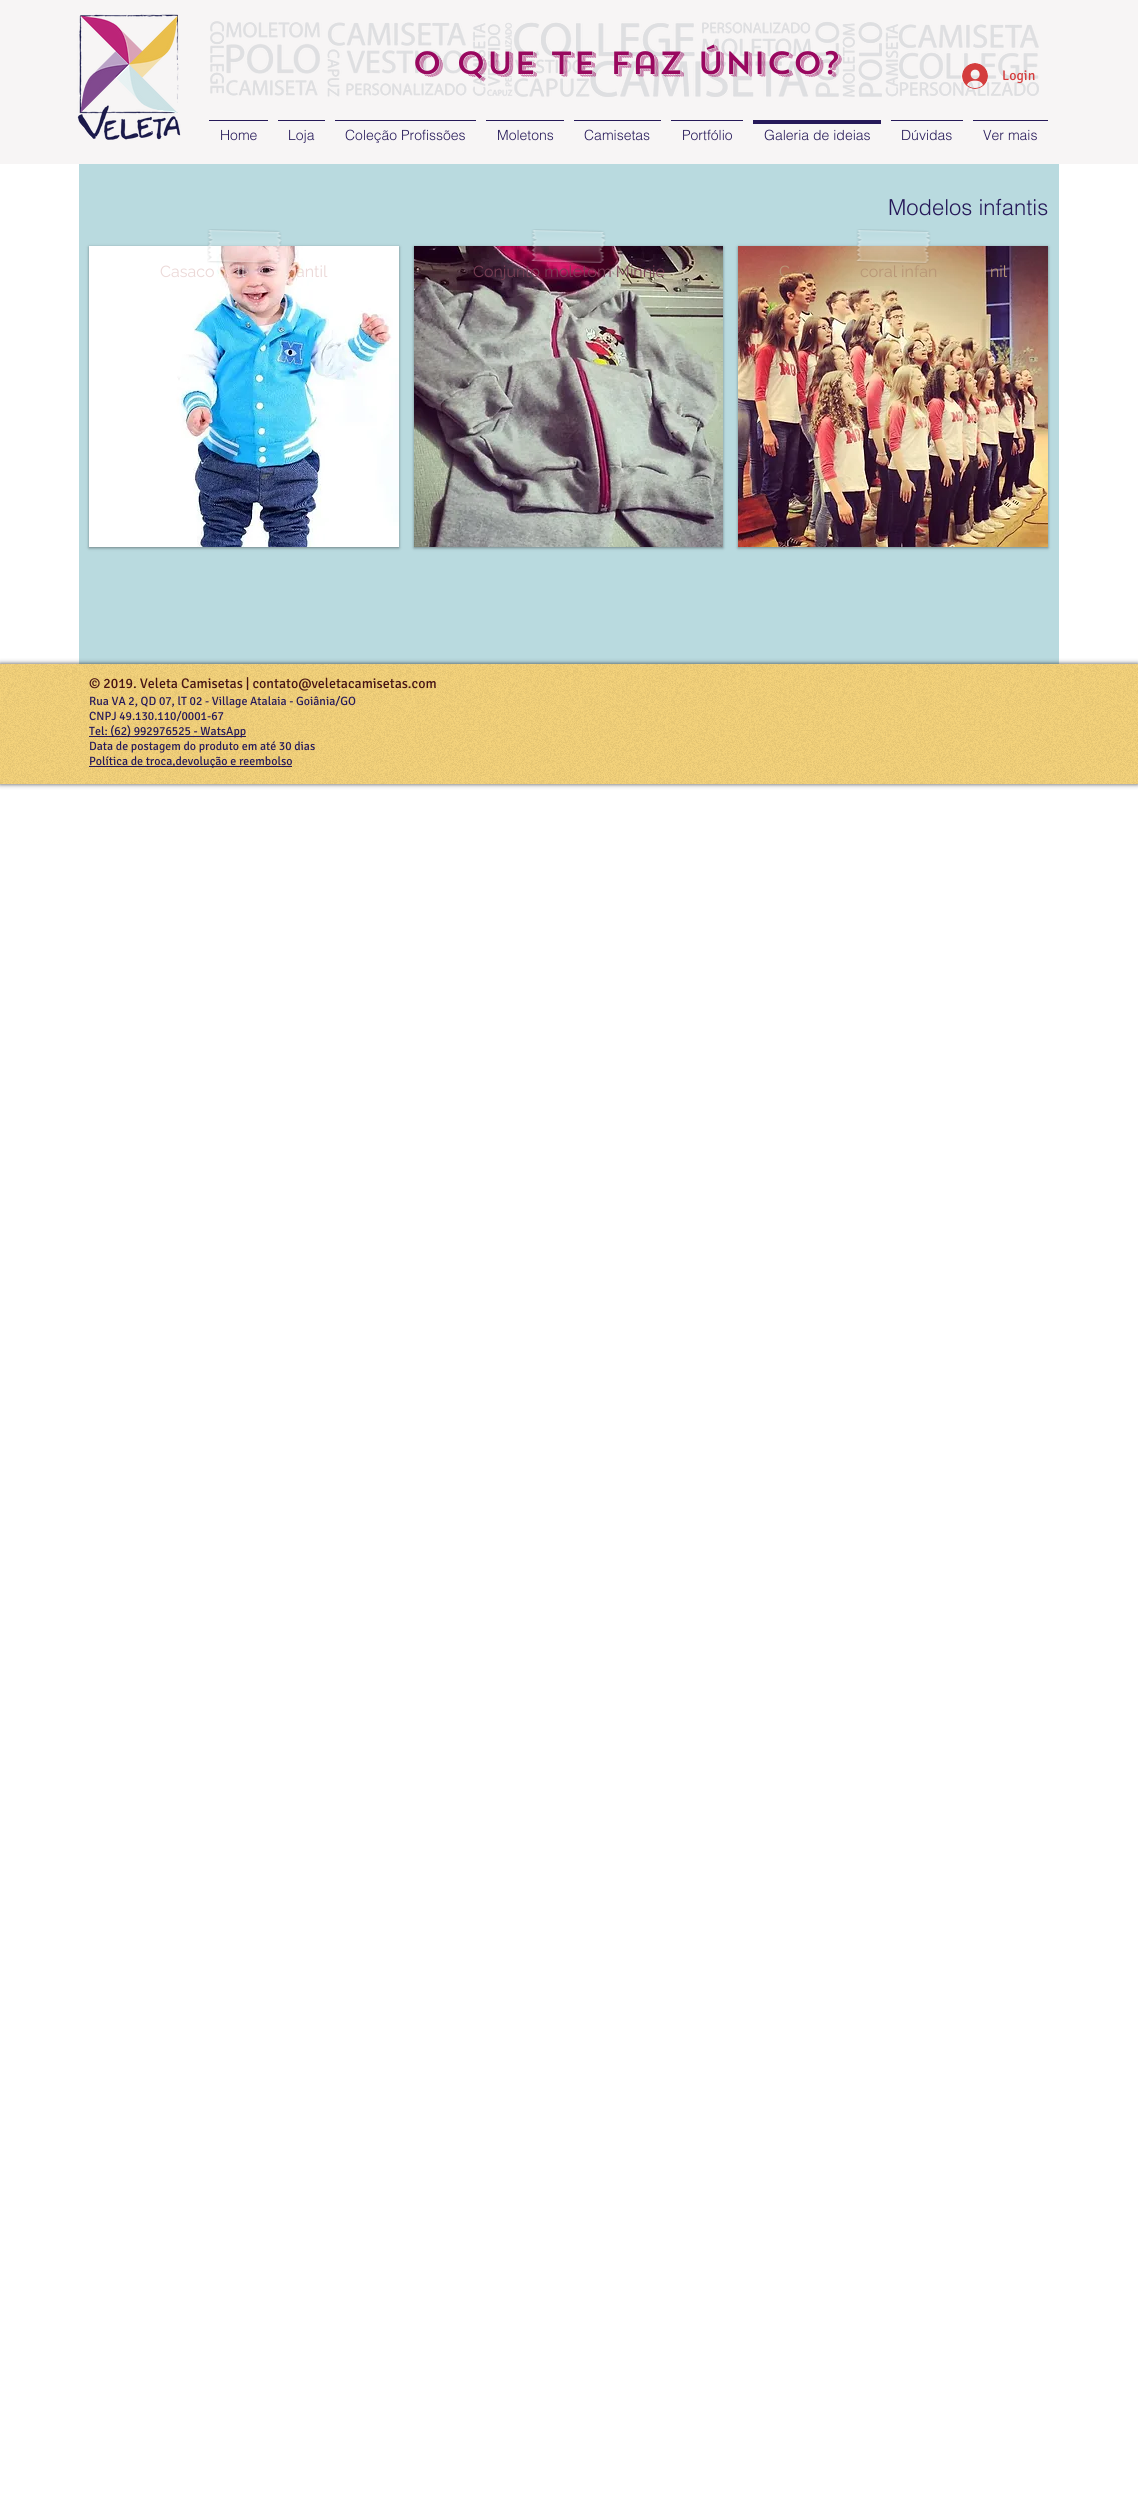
#include <cairo/cairo.h>
#include <math.h>
#include <stddef.h>

typedef struct { double x, y; const char *s; } line_t;
typedef struct { double x, y, w, h; unsigned color; } box_t;
static cairo_t *cr;

static void rgb(unsigned color)
{
	cairo_set_source_rgb(cr, (color >> 16) / 255.0, (color >> 8 & 255) / 255.0, (color & 255) / 255.0);
}

static void rrect(double x, double y, double w, double h, double r)
{
	cairo_new_sub_path(cr);
	cairo_arc(cr, x + w - r, y + h - r, r, 0, M_PI / 2);
	cairo_arc(cr, x + r, y + h - r, r, M_PI / 2, M_PI);
	cairo_arc(cr, x + r, y + r, r, M_PI, 1.5 * M_PI);
	cairo_arc(cr, x + w - r, y + r, r, 1.5 * M_PI, 2 * M_PI);
	cairo_close_path(cr);
}

static void soft_shadow(double x, double y, double w, double h, double r, double blur, double alpha)
{
	cairo_push_group_with_content(cr, CAIRO_CONTENT_ALPHA);
	cairo_set_operator(cr, CAIRO_OPERATOR_SOURCE);
	for (int i = 15; i >= -15 && fmin(w, h) + blur * i / 3 > 0; i -= 2) {
		double e = blur * i / 6;
		cairo_set_source_rgba(cr, 0, 0, 0, alpha * erfc((i - 1) / 8.5) / 2);
		rrect(x - e, y - e, w + 2 * e, h + 2 * e, fmax(0, fmin(r + e + blur * .6, fmin(w, h) / 2 + e)));
		cairo_fill(cr);
	}
	cairo_pattern_t *soft = cairo_pop_group(cr);
	cairo_mask(cr, soft);
	cairo_pattern_destroy(soft);
}

static void image(const char *path, double x, double y, double w, double h)
{
	cairo_surface_t *image = cairo_image_surface_create_from_png(path);
	cairo_save(cr);
	cairo_set_source_surface(cr, image, x, y);
	cairo_rectangle(cr, x, y, w, h);
	cairo_fill(cr);
	cairo_restore(cr);
	cairo_surface_destroy(image);
}

int main(void) {
	cairo_surface_t *surface = cairo_image_surface_create(CAIRO_FORMAT_RGB24, 1138, 2507);
	cr = cairo_create(surface);
	cairo_font_options_t *options = cairo_font_options_create();
	cairo_font_options_set_hint_metrics(options, CAIRO_HINT_METRICS_OFF);
	cairo_font_options_set_hint_style(options, CAIRO_HINT_STYLE_NONE);
	cairo_set_font_options(cr, options);
	cairo_set_miter_limit(cr, 4);
	rgb(0xffffff);
	cairo_paint(cr);
	rgb(0xf7f5f5);
	cairo_rectangle(cr, 0, 0, 1138, 164);
	cairo_fill(cr);
	image("img/1.png", 77, 14, 104, 126);
	image("img/2.png", 210, 21, 829, 76);
	image("img/3.png", 962, 63, 26, 26);
	{
		static const box_t items[] = {
			{209, 120, 59, 1, 0x261959},
			{278, 120, 47, 1, 0x261959},
			{335, 120, 141, 1, 0x261959},
			{486, 120, 78, 1, 0x261959},
			{574, 120, 87, 1, 0x261959},
			{671, 120, 72, 1, 0x261959},
			{753, 120, 128, 4, 0x261959},
			{891, 120, 72, 1, 0x261959},
			{973, 120, 75, 1, 0x261959},
			{79, 164, 980, 500, 0xb9dadf},
		};
		for (size_t i = 0; i < sizeof items / sizeof *items; i++) {
			rgb(items[i].color);
			cairo_rectangle(cr, items[i].x, items[i].y, items[i].w, items[i].h);
			cairo_fill(cr);
		}
	}
	rgb(0x000000);
	soft_shadow(89, 247, 310, 301, 0, 1.5, 0.4);
	image("img/5.png", 89, 246, 310, 301);
	image("img/4.png", 207, 229, 75, 35);
	soft_shadow(414, 247, 309, 301, 0, 1.5, 0.4);
	image("img/7.png", 414, 246, 309, 301);
	image("img/6.png", 531, 229, 75, 35);
	soft_shadow(738, 247, 310, 301, 0, 1.5, 0.4);
	image("img/9.png", 738, 246, 310, 301);
	image("img/8.png", 856, 229, 75, 35);
	soft_shadow(0, 664, 1138, 120, 0, 2.5, 0.7);
	rgb(0xf4d27a);
	cairo_rectangle(cr, 0, 664, 1138, 120);
	cairo_fill(cr);
	image("img/10.png", 0, 664, 1138, 120);
	rgb(0x261959);
	cairo_rectangle(cr, 89, 736, 157, 1);
	cairo_fill(cr);
	cairo_rectangle(cr, 89, 766, 203, 1);
	cairo_fill(cr);
	cairo_select_font_face(cr, "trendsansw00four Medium", CAIRO_FONT_SLANT_NORMAL, CAIRO_FONT_WEIGHT_NORMAL);
	cairo_set_font_size(cr, 32);
	rgb(0x99085f);
	cairo_move_to(cr, 412, 74);
	cairo_show_text(cr, "O que te faz único?");
	cairo_select_font_face(cr, "Signika", CAIRO_FONT_SLANT_NORMAL, CAIRO_FONT_WEIGHT_NORMAL);
	cairo_set_font_size(cr, 14);
	rgb(0xd43d3d);
	cairo_move_to(cr, 1002, 80);
	cairo_show_text(cr, "Login");
	cairo_select_font_face(cr, "helvetica Light", CAIRO_FONT_SLANT_NORMAL, CAIRO_FONT_WEIGHT_NORMAL);
	rgb(0x261959);
	{
		static const line_t items[] = {
			{220, 140, "Home"},
			{288, 140, "Loja"},
			{345, 140, "Coleção Profissões"},
			{497, 140, "Moletons"},
			{584, 140, "Camisetas"},
			{682, 140, "Portfólio"},
			{764, 140, "Galeria de ideias"},
			{901, 140, "Dúvidas"},
			{983, 140, "Ver mais"},
		};
		for (size_t i = 0; i < sizeof items / sizeof *items; i++) {
			cairo_move_to(cr, items[i].x, items[i].y);
			cairo_show_text(cr, items[i].s);
		}
	}
	cairo_set_font_size(cr, 22);
	cairo_move_to(cr, 888, 215);
	cairo_show_text(cr, "Modelos infantis");
	cairo_select_font_face(cr, "Raleway", CAIRO_FONT_SLANT_NORMAL, CAIRO_FONT_WEIGHT_NORMAL);
	cairo_set_font_size(cr, 16);
	rgb(0xebd8d7);
	{
		static const line_t items[] = {
			{160, 277, "Casaco"},
			{237, 277, "ll"},
			{296, 277, "antil"},
		};
		for (size_t i = 0; i < sizeof items / sizeof *items; i++) {
			cairo_move_to(cr, items[i].x, items[i].y);
			cairo_show_text(cr, items[i].s);
		}
	}
	rgb(0x783e54);
	cairo_move_to(cr, 473, 277);
	cairo_show_text(cr, "Conjunto moletom Minnie");
	rgb(0xb89676);
	{
		static const line_t items[] = {
			{779, 277, "C"},
			{860, 277, "coral infan"},
			{990, 277, "nil"},
		};
		for (size_t i = 0; i < sizeof items / sizeof *items; i++) {
			cairo_move_to(cr, items[i].x, items[i].y);
			cairo_show_text(cr, items[i].s);
		}
	}
	cairo_select_font_face(cr, "Signika", CAIRO_FONT_SLANT_NORMAL, CAIRO_FONT_WEIGHT_NORMAL);
	cairo_set_font_size(cr, 14);
	rgb(0x471414);
	cairo_move_to(cr, 89, 688);
	cairo_show_text(cr, "© 2019. Veleta Camisetas | contato@veletacamisetas.com");
	cairo_set_font_size(cr, 12);
	rgb(0x261959);
	{
		static const line_t items[] = {
			{89, 705, "Rua VA 2, QD 07, lT 02 - Village Atalaia - Goiânia/GO"},
			{89, 720, "CNPJ 49.130.110/0001-67"},
			{89, 735, "Tel: (62) 992976525 - WatsApp"},
			{89, 750, "Data de postagem do produto em até 30 dias"},
			{89, 765, "Política de troca,devolução e reembolso"},
		};
		for (size_t i = 0; i < sizeof items / sizeof *items; i++) {
			cairo_move_to(cr, items[i].x, items[i].y);
			cairo_show_text(cr, items[i].s);
		}
	}
	cairo_surface_write_to_png(surface, "page.png");
	cairo_font_options_destroy(options);
	cairo_destroy(cr);
	cairo_surface_destroy(surface);
	return 0;
}
